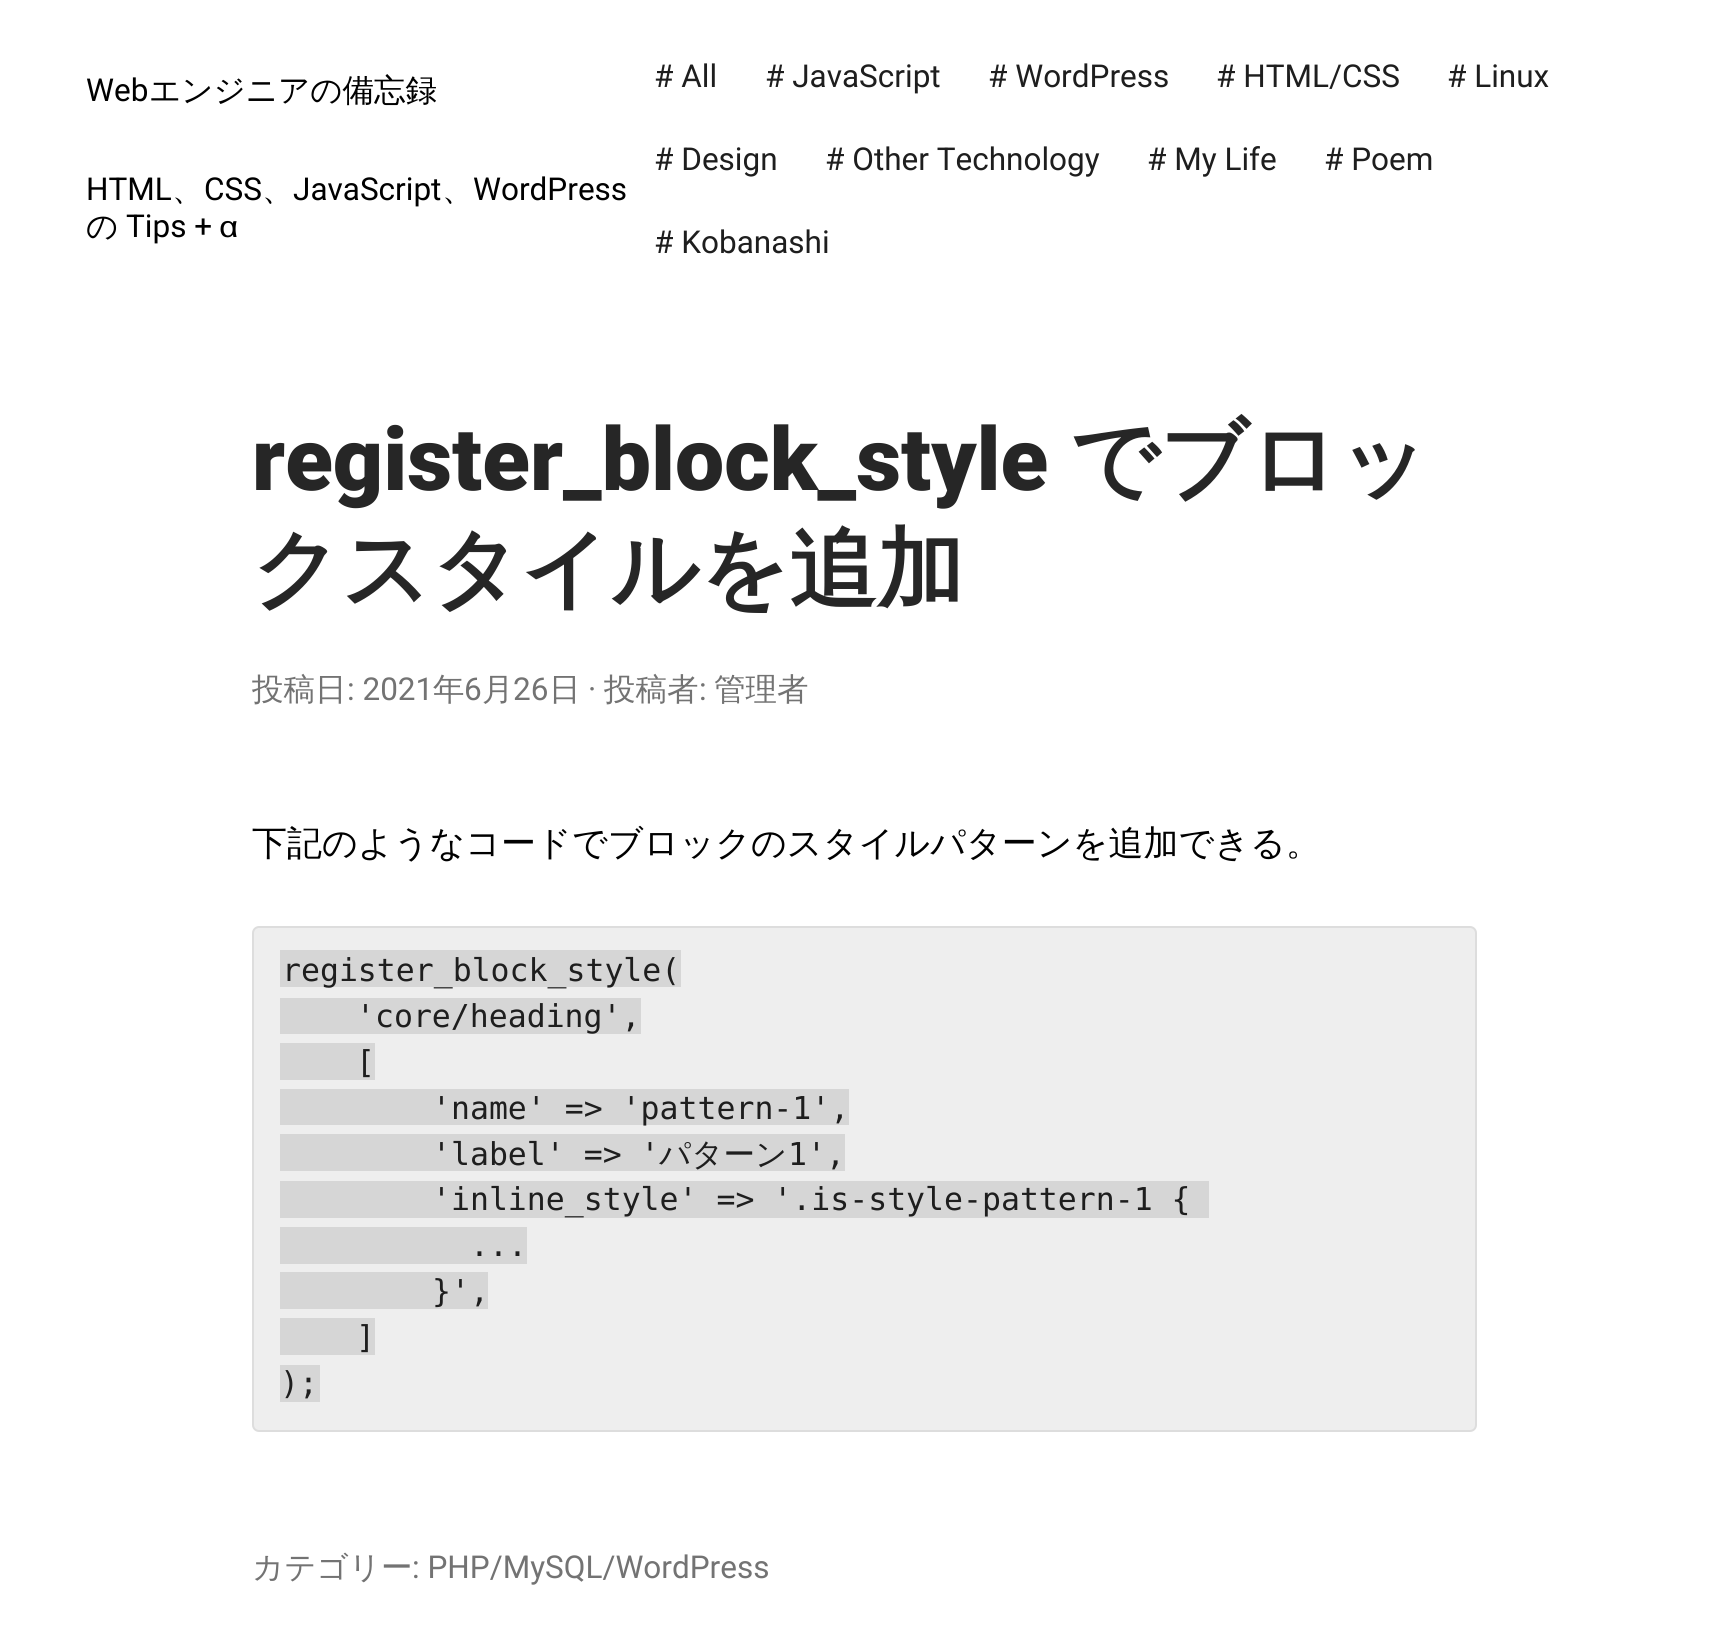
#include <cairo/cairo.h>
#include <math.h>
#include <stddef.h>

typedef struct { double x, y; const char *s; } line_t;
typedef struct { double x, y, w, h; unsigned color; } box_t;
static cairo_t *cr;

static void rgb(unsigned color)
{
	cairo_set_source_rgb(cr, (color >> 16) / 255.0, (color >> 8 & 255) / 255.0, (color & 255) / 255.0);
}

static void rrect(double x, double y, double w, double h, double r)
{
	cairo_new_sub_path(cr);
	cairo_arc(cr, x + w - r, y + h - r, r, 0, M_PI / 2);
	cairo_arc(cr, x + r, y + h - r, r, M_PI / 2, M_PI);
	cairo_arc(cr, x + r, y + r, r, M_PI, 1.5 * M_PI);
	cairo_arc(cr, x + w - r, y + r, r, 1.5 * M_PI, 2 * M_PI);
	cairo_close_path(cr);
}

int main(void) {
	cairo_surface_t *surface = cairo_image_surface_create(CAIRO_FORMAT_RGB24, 1728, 1643);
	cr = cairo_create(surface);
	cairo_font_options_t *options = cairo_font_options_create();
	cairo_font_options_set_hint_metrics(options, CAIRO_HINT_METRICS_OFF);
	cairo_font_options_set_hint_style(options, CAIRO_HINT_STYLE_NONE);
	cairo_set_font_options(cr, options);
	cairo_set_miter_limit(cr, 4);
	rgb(0xffffff);
	cairo_paint(cr);
	rgb(0xeeeeee);
	rrect(253, 927, 1223, 504, 6);
	cairo_fill_preserve(cr);
	rgb(0xdddddd);
	cairo_stroke(cr);
	{
		static const box_t items[] = {
			{280, 950, 401, 37, 0xd6d6d6},
			{280, 998, 361, 36, 0xd6d6d6},
			{280, 1043, 95, 37, 0xd6d6d6},
			{280, 1089, 569, 36, 0xd6d6d6},
			{280, 1134, 565, 37, 0xd6d6d6},
			{280, 1181, 929, 37, 0xd6d6d6},
			{280, 1227, 247, 37, 0xd6d6d6},
			{280, 1272, 208, 37, 0xd6d6d6},
			{280, 1318, 95, 37, 0xd6d6d6},
			{280, 1365, 40, 37, 0xd6d6d6},
		};
		for (size_t i = 0; i < sizeof items / sizeof *items; i++) {
			rgb(items[i].color);
			cairo_rectangle(cr, items[i].x, items[i].y, items[i].w, items[i].h);
			cairo_fill(cr);
		}
	}
	cairo_select_font_face(cr, "Roboto", CAIRO_FONT_SLANT_NORMAL, CAIRO_FONT_WEIGHT_NORMAL);
	cairo_set_font_size(cr, 31.5);
	rgb(0x000000);
	cairo_move_to(cr, 86, 101);
	cairo_show_text(cr, "Web");
	cairo_select_font_face(cr, "WenQuanYi Zen Hei Medium", CAIRO_FONT_SLANT_NORMAL, CAIRO_FONT_WEIGHT_NORMAL);
	cairo_move_to(cr, 149, 101);
	cairo_show_text(cr, "エンジニアの備忘録");
	cairo_select_font_face(cr, "Roboto", CAIRO_FONT_SLANT_NORMAL, CAIRO_FONT_WEIGHT_NORMAL);
	cairo_move_to(cr, 86, 200);
	cairo_show_text(cr, "HTML");
	cairo_select_font_face(cr, "WenQuanYi Zen Hei Medium", CAIRO_FONT_SLANT_NORMAL, CAIRO_FONT_WEIGHT_NORMAL);
	cairo_move_to(cr, 172, 200);
	cairo_show_text(cr, "、");
	cairo_select_font_face(cr, "Roboto", CAIRO_FONT_SLANT_NORMAL, CAIRO_FONT_WEIGHT_NORMAL);
	cairo_move_to(cr, 204, 200);
	cairo_show_text(cr, "CSS");
	cairo_select_font_face(cr, "WenQuanYi Zen Hei Medium", CAIRO_FONT_SLANT_NORMAL, CAIRO_FONT_WEIGHT_NORMAL);
	cairo_move_to(cr, 262, 200);
	cairo_show_text(cr, "、");
	cairo_select_font_face(cr, "Roboto", CAIRO_FONT_SLANT_NORMAL, CAIRO_FONT_WEIGHT_NORMAL);
	cairo_move_to(cr, 293, 200);
	cairo_show_text(cr, "JavaScript");
	cairo_select_font_face(cr, "WenQuanYi Zen Hei Medium", CAIRO_FONT_SLANT_NORMAL, CAIRO_FONT_WEIGHT_NORMAL);
	cairo_move_to(cr, 442, 200);
	cairo_show_text(cr, "、");
	cairo_select_font_face(cr, "Roboto", CAIRO_FONT_SLANT_NORMAL, CAIRO_FONT_WEIGHT_NORMAL);
	cairo_move_to(cr, 473, 200);
	cairo_show_text(cr, "WordPress");
	cairo_select_font_face(cr, "WenQuanYi Zen Hei Medium", CAIRO_FONT_SLANT_NORMAL, CAIRO_FONT_WEIGHT_NORMAL);
	cairo_move_to(cr, 86, 237);
	cairo_show_text(cr, "の");
	cairo_select_font_face(cr, "Roboto", CAIRO_FONT_SLANT_NORMAL, CAIRO_FONT_WEIGHT_NORMAL);
	cairo_move_to(cr, 126, 237);
	cairo_show_text(cr, "Tips +");
	cairo_select_font_face(cr, "WenQuanYi Zen Hei Medium", CAIRO_FONT_SLANT_NORMAL, CAIRO_FONT_WEIGHT_NORMAL);
	cairo_move_to(cr, 219, 237);
	cairo_show_text(cr, "α");
	cairo_select_font_face(cr, "Roboto", CAIRO_FONT_SLANT_NORMAL, CAIRO_FONT_WEIGHT_NORMAL);
	rgb(0x1e1e1e);
	{
		static const line_t items[] = {
			{654, 87, "# All"},
			{765, 87, "# JavaScript"},
			{988, 87, "# WordPress"},
			{1216, 87, "# HTML/CSS"},
			{1447, 87, "# Linux"},
			{654, 170, "# Design"},
			{825, 170, "# Other Technology"},
			{1147, 170, "# My Life"},
			{1324, 170, "# Poem"},
			{654, 253, "# Kobanashi"},
		};
		for (size_t i = 0; i < sizeof items / sizeof *items; i++) {
			cairo_move_to(cr, items[i].x, items[i].y);
			cairo_show_text(cr, items[i].s);
		}
	}
	cairo_select_font_face(cr, "Roboto Black", CAIRO_FONT_SLANT_NORMAL, CAIRO_FONT_WEIGHT_NORMAL);
	cairo_set_font_size(cr, 87.5);
	rgb(0x262626);
	cairo_move_to(cr, 252, 490);
	cairo_show_text(cr, "register_block_style");
	cairo_select_font_face(cr, "WenQuanYi Zen Hei", CAIRO_FONT_SLANT_NORMAL, CAIRO_FONT_WEIGHT_BOLD);
	cairo_move_to(cr, 1070, 490);
	cairo_show_text(cr, "でブロッ");
	cairo_move_to(cr, 252, 599);
	cairo_show_text(cr, "クスタイルを追加");
	cairo_select_font_face(cr, "WenQuanYi Zen Hei Medium", CAIRO_FONT_SLANT_NORMAL, CAIRO_FONT_WEIGHT_NORMAL);
	cairo_set_font_size(cr, 31.5);
	rgb(0x737373);
	cairo_move_to(cr, 252, 700);
	cairo_show_text(cr, "投稿日");
	cairo_select_font_face(cr, "Roboto", CAIRO_FONT_SLANT_NORMAL, CAIRO_FONT_WEIGHT_NORMAL);
	cairo_move_to(cr, 347, 700);
	cairo_show_text(cr, ": 2021");
	cairo_select_font_face(cr, "WenQuanYi Zen Hei Medium", CAIRO_FONT_SLANT_NORMAL, CAIRO_FONT_WEIGHT_NORMAL);
	cairo_move_to(cr, 433, 700);
	cairo_show_text(cr, "年");
	cairo_select_font_face(cr, "Roboto", CAIRO_FONT_SLANT_NORMAL, CAIRO_FONT_WEIGHT_NORMAL);
	cairo_move_to(cr, 464, 700);
	cairo_show_text(cr, "6");
	cairo_select_font_face(cr, "WenQuanYi Zen Hei Medium", CAIRO_FONT_SLANT_NORMAL, CAIRO_FONT_WEIGHT_NORMAL);
	cairo_move_to(cr, 482, 700);
	cairo_show_text(cr, "月");
	cairo_select_font_face(cr, "Roboto", CAIRO_FONT_SLANT_NORMAL, CAIRO_FONT_WEIGHT_NORMAL);
	cairo_move_to(cr, 513, 700);
	cairo_show_text(cr, "26");
	cairo_select_font_face(cr, "WenQuanYi Zen Hei Medium", CAIRO_FONT_SLANT_NORMAL, CAIRO_FONT_WEIGHT_NORMAL);
	cairo_move_to(cr, 549, 700);
	cairo_show_text(cr, "日");
	cairo_select_font_face(cr, "Roboto", CAIRO_FONT_SLANT_NORMAL, CAIRO_FONT_WEIGHT_NORMAL);
	cairo_move_to(cr, 588, 700);
	cairo_show_text(cr, "·");
	cairo_select_font_face(cr, "WenQuanYi Zen Hei Medium", CAIRO_FONT_SLANT_NORMAL, CAIRO_FONT_WEIGHT_NORMAL);
	cairo_move_to(cr, 604, 700);
	cairo_show_text(cr, "投稿者");
	cairo_select_font_face(cr, "Roboto", CAIRO_FONT_SLANT_NORMAL, CAIRO_FONT_WEIGHT_NORMAL);
	cairo_move_to(cr, 699, 700);
	cairo_show_text(cr, ":");
	cairo_select_font_face(cr, "WenQuanYi Zen Hei Medium", CAIRO_FONT_SLANT_NORMAL, CAIRO_FONT_WEIGHT_NORMAL);
	cairo_move_to(cr, 714, 700);
	cairo_show_text(cr, "管理者");
	cairo_set_font_size(cr, 35);
	rgb(0x000000);
	cairo_move_to(cr, 252, 855);
	cairo_show_text(cr, "下記のようなコードでブロックのスタイルパターンを追加できる。");
	cairo_select_font_face(cr, "DejaVu Sans Mono", CAIRO_FONT_SLANT_NORMAL, CAIRO_FONT_WEIGHT_NORMAL);
	cairo_set_font_size(cr, 31.5);
	rgb(0x1e1e1e);
	{
		static const line_t items[] = {
			{282, 981, "register_block_style("},
			{356, 1027, "'core/heading',"},
			{356, 1073, "["},
			{432, 1119, "'name' => 'pattern-1',"},
			{432, 1165, "'label' => '"},
		};
		for (size_t i = 0; i < sizeof items / sizeof *items; i++) {
			cairo_move_to(cr, items[i].x, items[i].y);
			cairo_show_text(cr, items[i].s);
		}
	}
	cairo_select_font_face(cr, "WenQuanYi Zen Hei Medium", CAIRO_FONT_SLANT_NORMAL, CAIRO_FONT_WEIGHT_NORMAL);
	cairo_move_to(cr, 659, 1165);
	cairo_show_text(cr, "パターン");
	cairo_select_font_face(cr, "DejaVu Sans Mono", CAIRO_FONT_SLANT_NORMAL, CAIRO_FONT_WEIGHT_NORMAL);
	{
		static const line_t items[] = {
			{788, 1165, "1',"},
			{432, 1210, "'inline_style' => '.is-style-pattern-1 {"},
			{470, 1256, "..."},
			{432, 1302, "}',"},
			{356, 1348, "]"},
			{280, 1394, ");"},
		};
		for (size_t i = 0; i < sizeof items / sizeof *items; i++) {
			cairo_move_to(cr, items[i].x, items[i].y);
			cairo_show_text(cr, items[i].s);
		}
	}
	cairo_select_font_face(cr, "WenQuanYi Zen Hei Medium", CAIRO_FONT_SLANT_NORMAL, CAIRO_FONT_WEIGHT_NORMAL);
	rgb(0x737373);
	cairo_move_to(cr, 252, 1578);
	cairo_show_text(cr, "カテゴリー");
	cairo_select_font_face(cr, "Roboto", CAIRO_FONT_SLANT_NORMAL, CAIRO_FONT_WEIGHT_NORMAL);
	cairo_move_to(cr, 412, 1578);
	cairo_show_text(cr, ": PHP/MySQL/WordPress");
	cairo_surface_write_to_png(surface, "page.png");
	cairo_font_options_destroy(options);
	cairo_destroy(cr);
	cairo_surface_destroy(surface);
	return 0;
}
